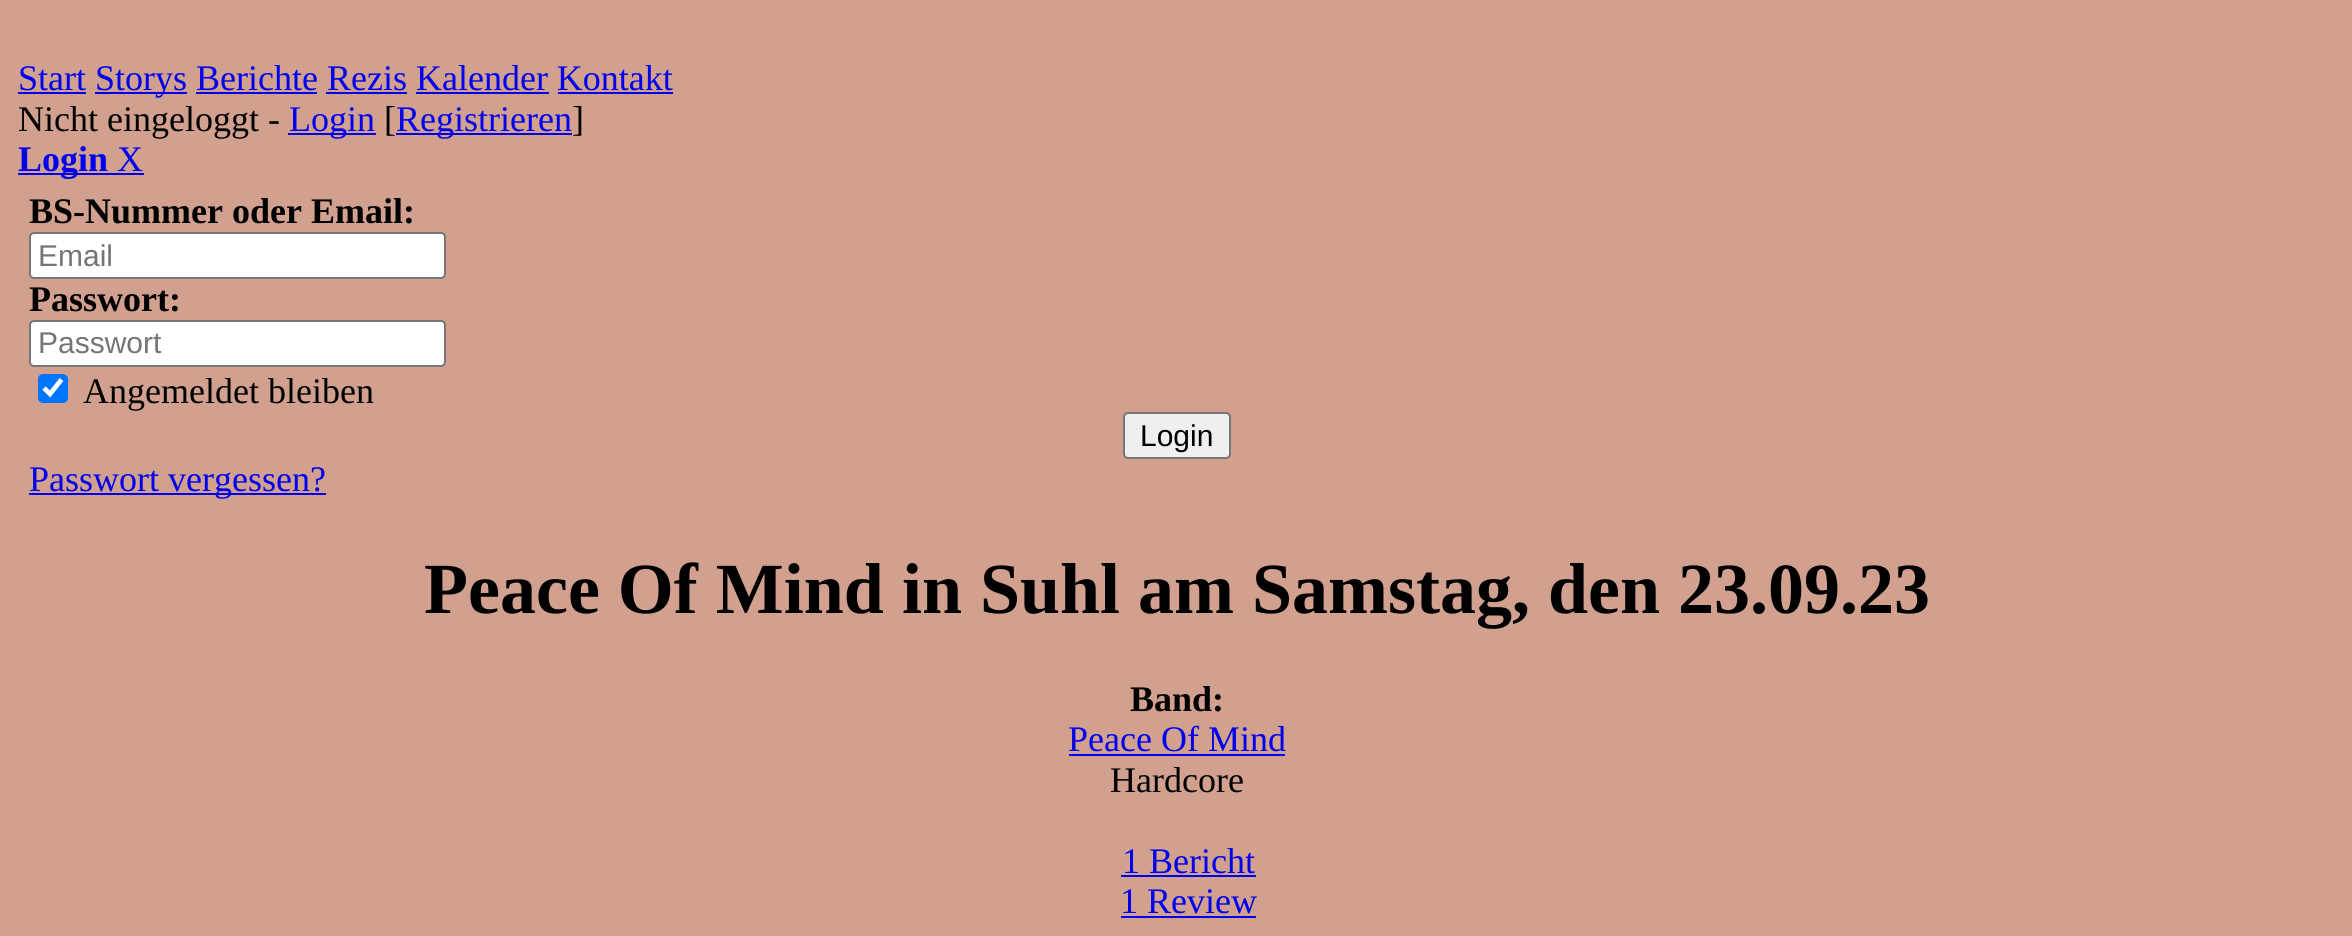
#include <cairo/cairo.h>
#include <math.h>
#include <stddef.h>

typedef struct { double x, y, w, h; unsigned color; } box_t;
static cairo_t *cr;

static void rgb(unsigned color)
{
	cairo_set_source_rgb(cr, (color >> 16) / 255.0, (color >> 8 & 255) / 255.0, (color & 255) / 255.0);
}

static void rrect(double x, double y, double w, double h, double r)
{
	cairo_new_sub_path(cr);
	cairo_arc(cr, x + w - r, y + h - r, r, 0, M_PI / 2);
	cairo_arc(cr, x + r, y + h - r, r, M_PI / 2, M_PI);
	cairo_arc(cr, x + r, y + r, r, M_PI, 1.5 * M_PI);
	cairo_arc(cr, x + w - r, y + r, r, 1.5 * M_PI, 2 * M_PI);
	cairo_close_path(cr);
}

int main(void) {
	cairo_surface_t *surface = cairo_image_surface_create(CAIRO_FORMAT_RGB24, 2352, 936);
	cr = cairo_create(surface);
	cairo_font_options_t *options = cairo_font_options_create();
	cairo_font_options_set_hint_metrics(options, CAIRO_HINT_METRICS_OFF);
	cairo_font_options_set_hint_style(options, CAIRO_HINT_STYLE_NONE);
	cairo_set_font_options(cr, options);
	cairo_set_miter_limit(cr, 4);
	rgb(0xd1a08f);
	cairo_paint(cr);
	{
		static const box_t items[] = {
			{18, 92, 68, 2, 0x0000ee},
			{95, 92, 92, 2, 0x0000ee},
			{196, 92, 121, 2, 0x0000ee},
			{326, 92, 81, 2, 0x0000ee},
			{416, 92, 133, 2, 0x0000ee},
			{558, 92, 115, 2, 0x0000ee},
			{288, 133, 88, 2, 0x0000ee},
			{396, 133, 176, 2, 0x0000ee},
			{18, 173, 126, 2, 0x0000ee},
		};
		for (size_t i = 0; i < sizeof items / sizeof *items; i++) {
			rgb(items[i].color);
			cairo_rectangle(cr, items[i].x, items[i].y, items[i].w, items[i].h);
			cairo_fill(cr);
		}
	}
	rgb(0xffffff);
	rrect(30, 233, 415, 45, 4);
	cairo_fill_preserve(cr);
	rgb(0x767676);
	cairo_stroke(cr);
	rgb(0xffffff);
	rrect(30, 321, 415, 45, 4);
	cairo_fill_preserve(cr);
	rgb(0x767676);
	cairo_stroke(cr);
	rgb(0x0075ff);
	rrect(38, 374, 30, 29, 5);
	cairo_fill(cr);
	cairo_new_path(cr);
	cairo_move_to(cr, 44, 388);
	cairo_line_to(cr, 50, 394);
	cairo_line_to(cr, 61.5, 379.5);
	rgb(0xffffff);
	cairo_set_line_width(cr, 4.7);
	cairo_stroke(cr);
	rgb(0xefefef);
	rrect(1124, 413, 106, 45, 4);
	cairo_fill_preserve(cr);
	rgb(0x767676);
	cairo_set_line_width(cr, 2);
	cairo_stroke(cr);
	{
		static const box_t items[] = {
			{29, 493, 297, 2, 0x0000ee},
			{1069, 754, 216, 2, 0x0000ee},
			{1121, 875, 135, 2, 0x0000ee},
			{1121, 916, 135, 2, 0x0000ee},
		};
		for (size_t i = 0; i < sizeof items / sizeof *items; i++) {
			rgb(items[i].color);
			cairo_rectangle(cr, items[i].x, items[i].y, items[i].w, items[i].h);
			cairo_fill(cr);
		}
	}
	cairo_select_font_face(cr, "Liberation Serif", CAIRO_FONT_SLANT_NORMAL, CAIRO_FONT_WEIGHT_NORMAL);
	cairo_set_font_size(cr, 36);
	cairo_move_to(cr, 18, 90);
	cairo_show_text(cr, "Start");
	cairo_move_to(cr, 95, 90);
	cairo_show_text(cr, "Storys Berichte Rezis Kalender Kontakt");
	rgb(0x000000);
	cairo_move_to(cr, 18, 131);
	cairo_show_text(cr, "Nicht eingeloggt -");
	rgb(0x0000ee);
	cairo_move_to(cr, 289, 131);
	cairo_show_text(cr, "Login");
	rgb(0x000000);
	cairo_move_to(cr, 384, 131);
	cairo_show_text(cr, "[");
	rgb(0x0000ee);
	cairo_move_to(cr, 396, 131);
	cairo_show_text(cr, "Registrieren");
	rgb(0x000000);
	cairo_move_to(cr, 572, 131);
	cairo_show_text(cr, "]");
	cairo_select_font_face(cr, "Liberation Serif", CAIRO_FONT_SLANT_NORMAL, CAIRO_FONT_WEIGHT_BOLD);
	rgb(0x0000ee);
	cairo_move_to(cr, 18, 171);
	cairo_show_text(cr, "Login");
	cairo_select_font_face(cr, "Liberation Serif", CAIRO_FONT_SLANT_NORMAL, CAIRO_FONT_WEIGHT_NORMAL);
	cairo_move_to(cr, 117, 171);
	cairo_show_text(cr, "X");
	cairo_select_font_face(cr, "Liberation Serif", CAIRO_FONT_SLANT_NORMAL, CAIRO_FONT_WEIGHT_BOLD);
	rgb(0x000000);
	cairo_move_to(cr, 29, 223);
	cairo_show_text(cr, "BS-Nummer oder Email:");
	cairo_select_font_face(cr, "Liberation Sans", CAIRO_FONT_SLANT_NORMAL, CAIRO_FONT_WEIGHT_NORMAL);
	cairo_set_font_size(cr, 30);
	rgb(0x757575);
	cairo_move_to(cr, 38, 266);
	cairo_show_text(cr, "Email");
	cairo_select_font_face(cr, "Liberation Serif", CAIRO_FONT_SLANT_NORMAL, CAIRO_FONT_WEIGHT_BOLD);
	cairo_set_font_size(cr, 36);
	rgb(0x000000);
	cairo_move_to(cr, 29, 311);
	cairo_show_text(cr, "Passwort:");
	cairo_select_font_face(cr, "Liberation Sans", CAIRO_FONT_SLANT_NORMAL, CAIRO_FONT_WEIGHT_NORMAL);
	cairo_set_font_size(cr, 30);
	rgb(0x757575);
	cairo_move_to(cr, 38, 353);
	cairo_show_text(cr, "Passwort");
	cairo_select_font_face(cr, "Liberation Serif", CAIRO_FONT_SLANT_NORMAL, CAIRO_FONT_WEIGHT_NORMAL);
	cairo_set_font_size(cr, 36);
	rgb(0x000000);
	cairo_move_to(cr, 83, 403);
	cairo_show_text(cr, "Angemeldet bleiben");
	cairo_select_font_face(cr, "Liberation Sans", CAIRO_FONT_SLANT_NORMAL, CAIRO_FONT_WEIGHT_NORMAL);
	cairo_set_font_size(cr, 30);
	cairo_move_to(cr, 1140, 446);
	cairo_show_text(cr, "Login");
	cairo_select_font_face(cr, "Liberation Serif", CAIRO_FONT_SLANT_NORMAL, CAIRO_FONT_WEIGHT_NORMAL);
	cairo_set_font_size(cr, 36);
	rgb(0x0000ee);
	cairo_move_to(cr, 29, 491);
	cairo_show_text(cr, "Passwort vergessen?");
	cairo_select_font_face(cr, "Liberation Serif", CAIRO_FONT_SLANT_NORMAL, CAIRO_FONT_WEIGHT_BOLD);
	cairo_set_font_size(cr, 72);
	rgb(0x000000);
	cairo_move_to(cr, 424, 613);
	cairo_show_text(cr, "Peace Of Mind in Suhl am Samstag, den 23.09.23");
	cairo_set_font_size(cr, 36);
	cairo_move_to(cr, 1130, 711);
	cairo_show_text(cr, "Band:");
	cairo_select_font_face(cr, "Liberation Serif", CAIRO_FONT_SLANT_NORMAL, CAIRO_FONT_WEIGHT_NORMAL);
	rgb(0x0000ee);
	cairo_move_to(cr, 1068, 751);
	cairo_show_text(cr, "Peace Of Mind");
	rgb(0x000000);
	cairo_move_to(cr, 1110, 792);
	cairo_show_text(cr, "Hardcore");
	rgb(0x0000ee);
	cairo_move_to(cr, 1122, 873);
	cairo_show_text(cr, "1 Bericht");
	cairo_move_to(cr, 1120, 913);
	cairo_show_text(cr, "1 Review");
	cairo_surface_write_to_png(surface, "page.png");
	cairo_font_options_destroy(options);
	cairo_destroy(cr);
	cairo_surface_destroy(surface);
	return 0;
}
